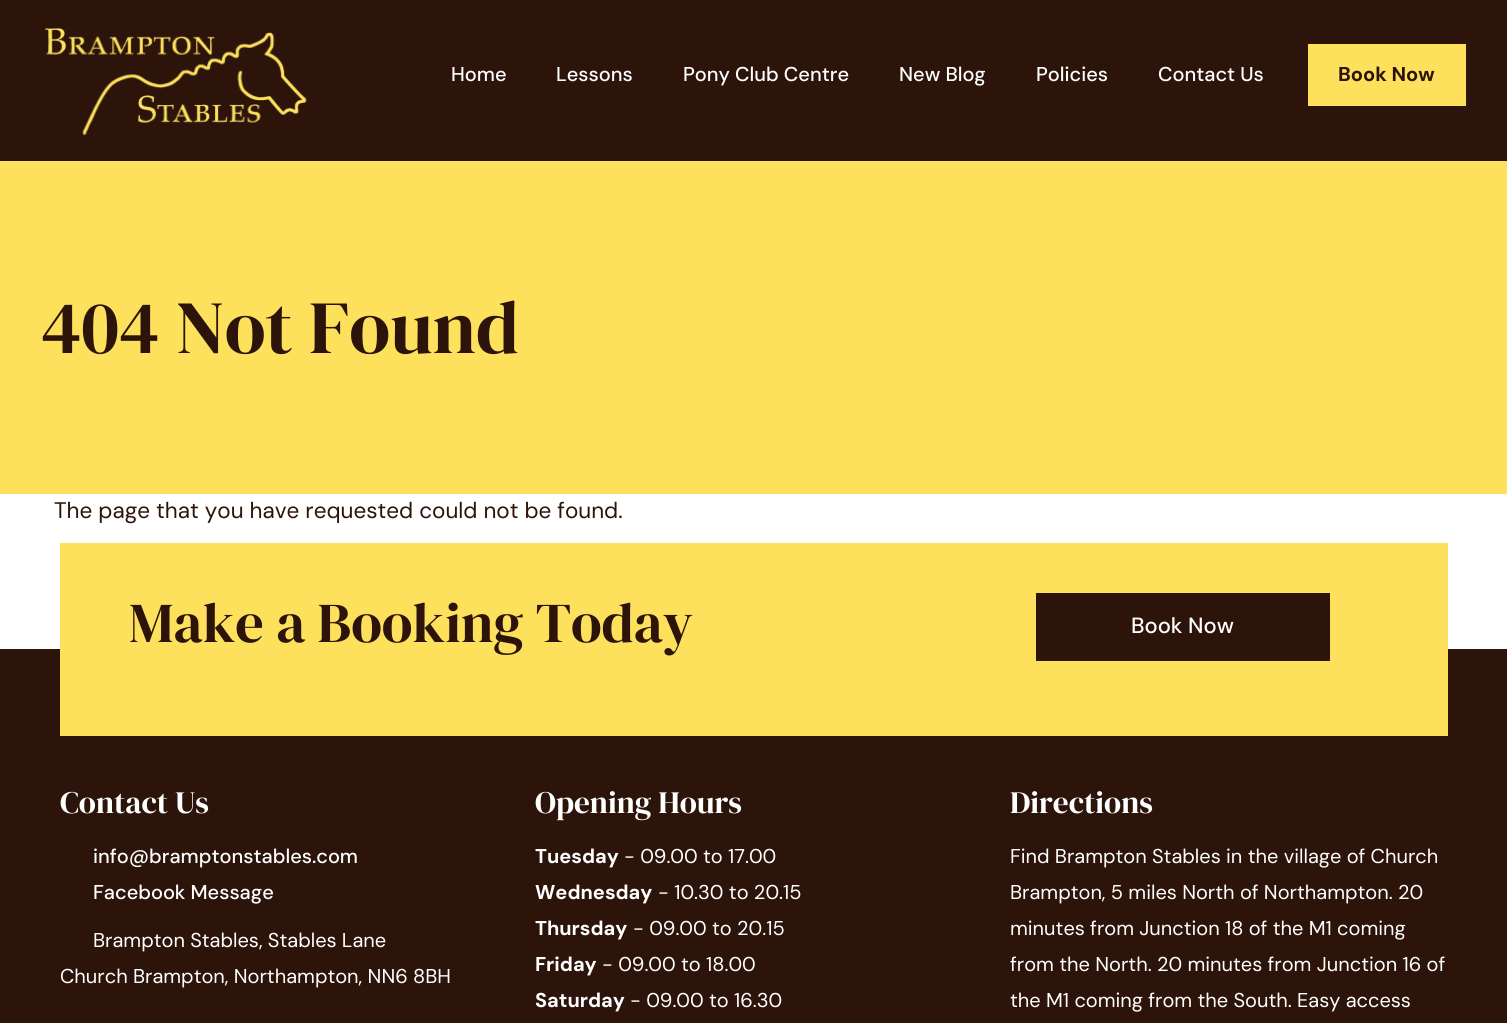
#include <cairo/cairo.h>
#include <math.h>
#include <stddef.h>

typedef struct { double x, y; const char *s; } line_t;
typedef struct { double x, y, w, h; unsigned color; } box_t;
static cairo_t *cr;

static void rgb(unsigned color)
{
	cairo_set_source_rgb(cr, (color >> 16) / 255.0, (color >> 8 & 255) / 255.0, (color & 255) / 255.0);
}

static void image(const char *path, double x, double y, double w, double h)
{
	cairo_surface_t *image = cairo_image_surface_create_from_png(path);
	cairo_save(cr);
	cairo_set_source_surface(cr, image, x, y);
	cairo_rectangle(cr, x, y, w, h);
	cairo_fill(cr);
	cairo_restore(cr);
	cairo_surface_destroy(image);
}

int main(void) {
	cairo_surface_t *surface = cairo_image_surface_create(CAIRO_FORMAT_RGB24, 1507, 1023);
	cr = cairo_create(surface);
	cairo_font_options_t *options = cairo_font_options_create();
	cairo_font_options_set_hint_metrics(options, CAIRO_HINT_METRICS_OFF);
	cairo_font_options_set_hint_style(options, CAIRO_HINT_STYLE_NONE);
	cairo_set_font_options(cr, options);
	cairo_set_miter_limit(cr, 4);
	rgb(0xffffff);
	cairo_paint(cr);
	rgb(0x2c140a);
	cairo_rectangle(cr, 0, 0, 1507, 161);
	cairo_fill(cr);
	image("img/1.png", 45, 28, 262, 108);
	{
		static const box_t items[] = {
			{1308, 44, 158, 62, 0xfde15d},
			{0, 161, 1507, 333, 0xfde15d},
			{0, 649, 1507, 374, 0x2c140a},
			{60, 543, 1388, 193, 0xfde15d},
			{1036, 593, 294, 68, 0x2c140a},
		};
		for (size_t i = 0; i < sizeof items / sizeof *items; i++) {
			rgb(items[i].color);
			cairo_rectangle(cr, items[i].x, items[i].y, items[i].w, items[i].h);
			cairo_fill(cr);
		}
	}
	cairo_select_font_face(cr, "DM Sans Medium", CAIRO_FONT_SLANT_NORMAL, CAIRO_FONT_WEIGHT_NORMAL);
	cairo_set_font_size(cr, 20);
	rgb(0xffffff);
	{
		static const line_t items[] = {
			{451, 81, "Home"},
			{556, 81, "Lessons"},
			{683, 81, "Pony Club Centre"},
			{899, 81, "New Blog"},
			{1036, 81, "Policies"},
			{1158, 81, "Contact Us"},
		};
		for (size_t i = 0; i < sizeof items / sizeof *items; i++) {
			cairo_move_to(cr, items[i].x, items[i].y);
			cairo_show_text(cr, items[i].s);
		}
	}
	cairo_select_font_face(cr, "DM Sans", CAIRO_FONT_SLANT_NORMAL, CAIRO_FONT_WEIGHT_BOLD);
	rgb(0x2c140a);
	cairo_move_to(cr, 1338, 81);
	cairo_show_text(cr, "Book Now");
	cairo_select_font_face(cr, "DM Serif Display", CAIRO_FONT_SLANT_NORMAL, CAIRO_FONT_WEIGHT_NORMAL);
	cairo_set_font_size(cr, 75);
	cairo_move_to(cr, 41, 353);
	cairo_show_text(cr, "404 Not Found");
	cairo_select_font_face(cr, "DM Sans", CAIRO_FONT_SLANT_NORMAL, CAIRO_FONT_WEIGHT_NORMAL);
	cairo_set_font_size(cr, 22.5);
	cairo_move_to(cr, 54, 518);
	cairo_show_text(cr, "The page that you have requested could not be found.");
	cairo_select_font_face(cr, "DM Serif Display", CAIRO_FONT_SLANT_NORMAL, CAIRO_FONT_WEIGHT_NORMAL);
	cairo_set_font_size(cr, 56.25);
	cairo_move_to(cr, 129, 642);
	cairo_show_text(cr, "Make a Booking Today");
	cairo_select_font_face(cr, "DM Sans Medium", CAIRO_FONT_SLANT_NORMAL, CAIRO_FONT_WEIGHT_NORMAL);
	cairo_set_font_size(cr, 22);
	rgb(0xffffff);
	cairo_move_to(cr, 1131, 633);
	cairo_show_text(cr, "Book Now");
	cairo_select_font_face(cr, "DM Serif Display", CAIRO_FONT_SLANT_NORMAL, CAIRO_FONT_WEIGHT_NORMAL);
	cairo_set_font_size(cr, 31.25);
	cairo_move_to(cr, 60, 813);
	cairo_show_text(cr, "Contact Us");
	cairo_select_font_face(cr, "DM Sans Medium", CAIRO_FONT_SLANT_NORMAL, CAIRO_FONT_WEIGHT_NORMAL);
	cairo_set_font_size(cr, 20);
	cairo_move_to(cr, 93, 863);
	cairo_show_text(cr, "info@bramptonstables.com");
	cairo_move_to(cr, 93, 899);
	cairo_show_text(cr, "Facebook Message");
	cairo_select_font_face(cr, "DM Sans", CAIRO_FONT_SLANT_NORMAL, CAIRO_FONT_WEIGHT_NORMAL);
	cairo_move_to(cr, 93, 947);
	cairo_show_text(cr, "Brampton Stables, Stables Lane");
	cairo_move_to(cr, 60, 983);
	cairo_show_text(cr, "Church Brampton, Northampton, NN6 8BH");
	cairo_select_font_face(cr, "DM Serif Display", CAIRO_FONT_SLANT_NORMAL, CAIRO_FONT_WEIGHT_NORMAL);
	cairo_set_font_size(cr, 31.25);
	cairo_move_to(cr, 535, 813);
	cairo_show_text(cr, "Opening Hours");
	cairo_select_font_face(cr, "DM Sans", CAIRO_FONT_SLANT_NORMAL, CAIRO_FONT_WEIGHT_BOLD);
	cairo_set_font_size(cr, 20);
	cairo_move_to(cr, 535, 863);
	cairo_show_text(cr, "Tuesday");
	cairo_select_font_face(cr, "DM Sans", CAIRO_FONT_SLANT_NORMAL, CAIRO_FONT_WEIGHT_NORMAL);
	cairo_move_to(cr, 624, 863);
	cairo_show_text(cr, "- 09.00 to 17.00");
	cairo_select_font_face(cr, "DM Sans", CAIRO_FONT_SLANT_NORMAL, CAIRO_FONT_WEIGHT_BOLD);
	cairo_move_to(cr, 535, 899);
	cairo_show_text(cr, "Wednesday");
	cairo_select_font_face(cr, "DM Sans", CAIRO_FONT_SLANT_NORMAL, CAIRO_FONT_WEIGHT_NORMAL);
	cairo_move_to(cr, 658, 899);
	cairo_show_text(cr, "- 10.30 to 20.15");
	cairo_select_font_face(cr, "DM Sans", CAIRO_FONT_SLANT_NORMAL, CAIRO_FONT_WEIGHT_BOLD);
	cairo_move_to(cr, 535, 935);
	cairo_show_text(cr, "Thursday");
	cairo_select_font_face(cr, "DM Sans", CAIRO_FONT_SLANT_NORMAL, CAIRO_FONT_WEIGHT_NORMAL);
	cairo_move_to(cr, 633, 935);
	cairo_show_text(cr, "- 09.00 to 20.15");
	cairo_select_font_face(cr, "DM Sans", CAIRO_FONT_SLANT_NORMAL, CAIRO_FONT_WEIGHT_BOLD);
	cairo_move_to(cr, 535, 971);
	cairo_show_text(cr, "Friday");
	cairo_select_font_face(cr, "DM Sans", CAIRO_FONT_SLANT_NORMAL, CAIRO_FONT_WEIGHT_NORMAL);
	cairo_move_to(cr, 602, 971);
	cairo_show_text(cr, "- 09.00 to 18.00");
	cairo_select_font_face(cr, "DM Sans", CAIRO_FONT_SLANT_NORMAL, CAIRO_FONT_WEIGHT_BOLD);
	cairo_move_to(cr, 535, 1007);
	cairo_show_text(cr, "Saturday");
	cairo_select_font_face(cr, "DM Sans", CAIRO_FONT_SLANT_NORMAL, CAIRO_FONT_WEIGHT_NORMAL);
	cairo_move_to(cr, 630, 1007);
	cairo_show_text(cr, "- 09.00 to 16.30");
	cairo_select_font_face(cr, "DM Serif Display", CAIRO_FONT_SLANT_NORMAL, CAIRO_FONT_WEIGHT_NORMAL);
	cairo_set_font_size(cr, 31.25);
	cairo_move_to(cr, 1010, 813);
	cairo_show_text(cr, "Directions");
	cairo_select_font_face(cr, "DM Sans", CAIRO_FONT_SLANT_NORMAL, CAIRO_FONT_WEIGHT_NORMAL);
	cairo_set_font_size(cr, 20);
	{
		static const line_t items[] = {
			{1010, 863, "Find Brampton Stables in the village of Church"},
			{1010, 899, "Brampton, 5 miles North of Northampton. 20"},
			{1010, 935, "minutes from Junction 18 of the M1 coming"},
			{1010, 971, "from the North. 20 minutes from Junction 16 of"},
			{1010, 1007, "the M1 coming from the South. Easy access"},
		};
		for (size_t i = 0; i < sizeof items / sizeof *items; i++) {
			cairo_move_to(cr, items[i].x, items[i].y);
			cairo_show_text(cr, items[i].s);
		}
	}
	cairo_surface_write_to_png(surface, "page.png");
	cairo_font_options_destroy(options);
	cairo_destroy(cr);
	cairo_surface_destroy(surface);
	return 0;
}
